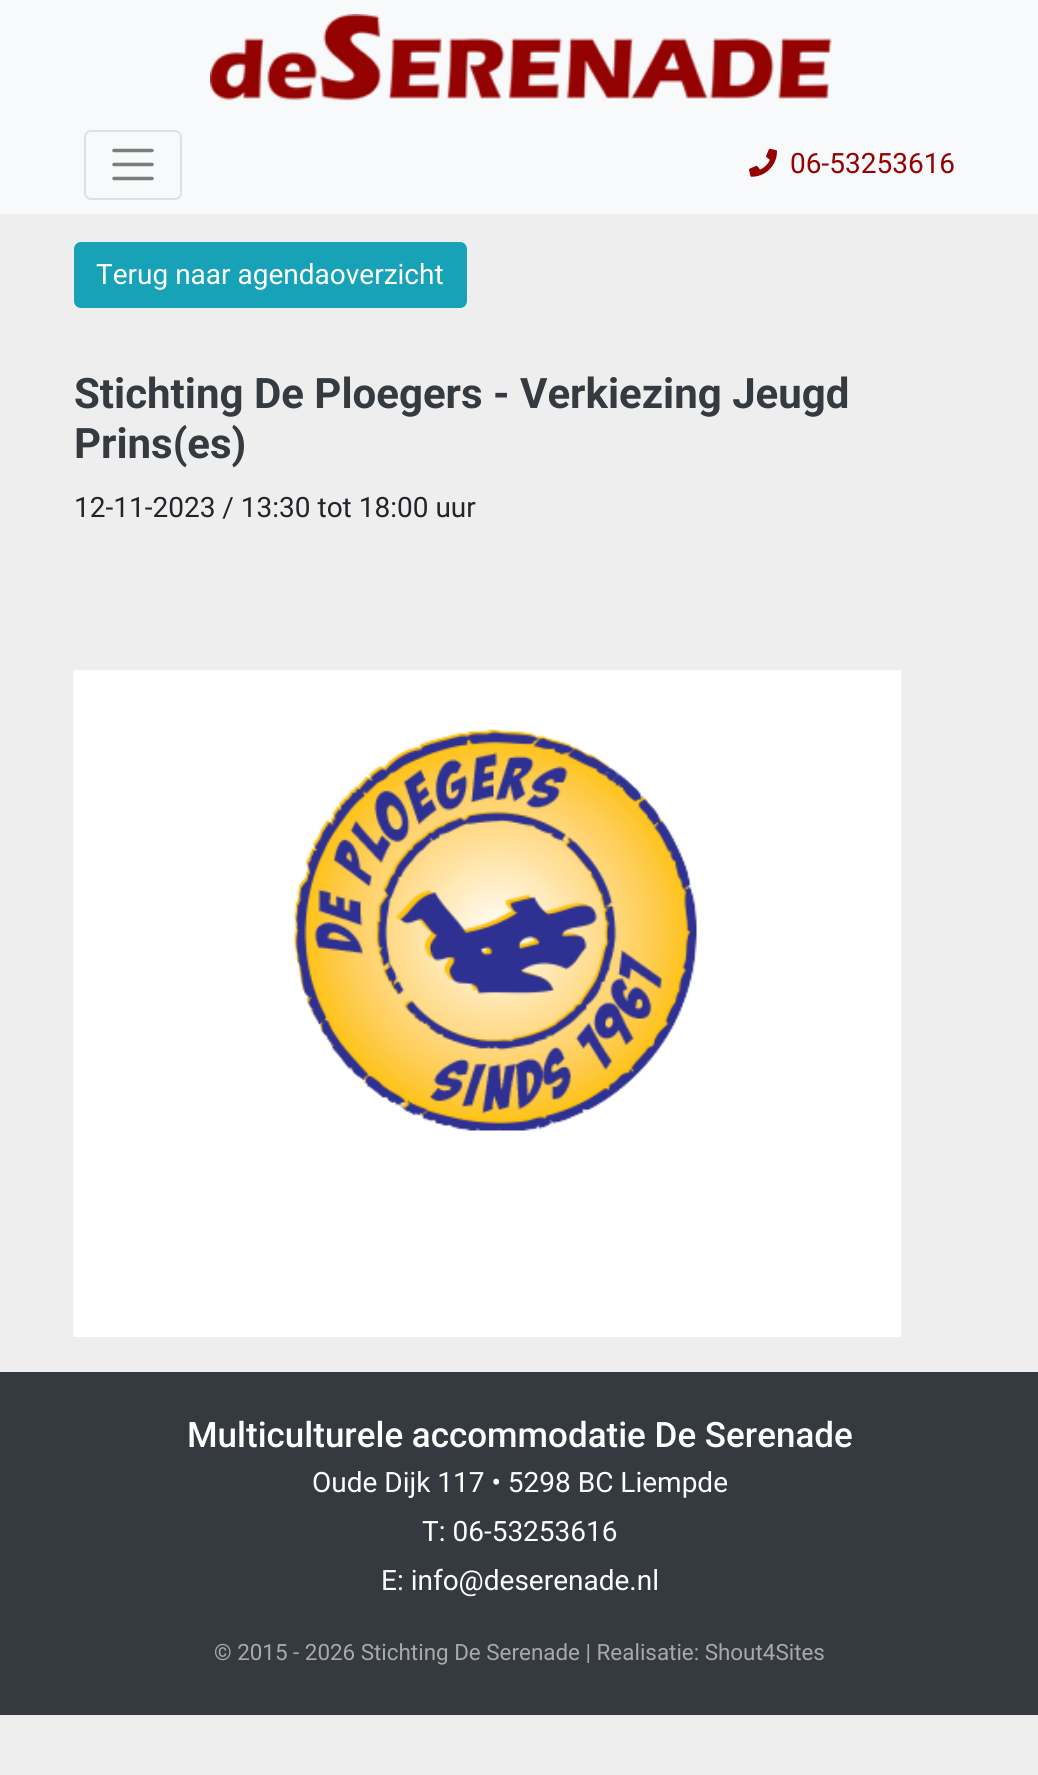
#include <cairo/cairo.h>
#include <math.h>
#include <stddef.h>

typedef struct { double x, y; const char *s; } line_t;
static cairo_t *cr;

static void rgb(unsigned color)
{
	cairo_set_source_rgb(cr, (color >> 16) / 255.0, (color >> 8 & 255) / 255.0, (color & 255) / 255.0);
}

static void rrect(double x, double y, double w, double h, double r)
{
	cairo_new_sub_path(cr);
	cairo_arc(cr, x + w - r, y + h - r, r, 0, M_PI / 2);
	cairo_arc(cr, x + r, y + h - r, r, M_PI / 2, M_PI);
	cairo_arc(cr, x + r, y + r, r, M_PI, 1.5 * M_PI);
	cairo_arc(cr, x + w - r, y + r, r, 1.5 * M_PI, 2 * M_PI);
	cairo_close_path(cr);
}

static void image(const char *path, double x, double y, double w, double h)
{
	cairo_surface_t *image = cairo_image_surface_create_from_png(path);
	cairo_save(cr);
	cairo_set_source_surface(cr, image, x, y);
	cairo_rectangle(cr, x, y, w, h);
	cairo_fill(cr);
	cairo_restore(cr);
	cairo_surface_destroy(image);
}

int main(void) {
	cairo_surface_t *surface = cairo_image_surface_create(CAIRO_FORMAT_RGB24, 1038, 1775);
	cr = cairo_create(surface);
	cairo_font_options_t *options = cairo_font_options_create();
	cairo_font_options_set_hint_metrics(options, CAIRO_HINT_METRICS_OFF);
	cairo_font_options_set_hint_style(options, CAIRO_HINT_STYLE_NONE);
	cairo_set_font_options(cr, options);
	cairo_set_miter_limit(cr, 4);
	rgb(0xeeeeee);
	cairo_paint(cr);
	rgb(0xf8f9fa);
	cairo_rectangle(cr, 0, 0, 1038, 214);
	cairo_fill(cr);
	image("img/1.png", 210, 14, 622, 87);
	rrect(85, 131, 96, 68, 6);
	rgb(0xdfe0e1);
	cairo_stroke(cr);
	cairo_new_path(cr);
	cairo_move_to(cr, 114, 150.5);
	cairo_line_to(cr, 152, 150.5);
	cairo_move_to(cr, 114, 164.5);
	cairo_line_to(cr, 152, 164.5);
	cairo_move_to(cr, 114, 178.5);
	cairo_line_to(cr, 152, 178.5);
	rgb(0x7c7d7d);
	cairo_set_line_width(cr, 3.5);
	cairo_set_line_cap(cr, CAIRO_LINE_CAP_ROUND);
	cairo_stroke(cr);
	image("img/2.png", 749, 148, 28, 29);
	rgb(0x17a2b8);
	rrect(75, 243, 391, 64, 6);
	cairo_fill_preserve(cr);
	cairo_set_line_width(cr, 2);
	cairo_set_line_cap(cr, CAIRO_LINE_CAP_BUTT);
	cairo_stroke(cr);
	image("img/3.png", 73, 670, 829, 667);
	rgb(0x343a40);
	cairo_rectangle(cr, 0, 1372, 1038, 343);
	cairo_fill(cr);
	cairo_select_font_face(cr, "Roboto", CAIRO_FONT_SLANT_NORMAL, CAIRO_FONT_WEIGHT_NORMAL);
	cairo_set_font_size(cr, 28);
	rgb(0x920302);
	cairo_move_to(cr, 790, 173);
	cairo_show_text(cr, "06-53253616");
	rgb(0xffffff);
	cairo_move_to(cr, 96, 284);
	cairo_show_text(cr, "Terug naar agendaoverzicht");
	cairo_select_font_face(cr, "Roboto", CAIRO_FONT_SLANT_NORMAL, CAIRO_FONT_WEIGHT_BOLD);
	cairo_set_font_size(cr, 42);
	rgb(0x343a40);
	cairo_move_to(cr, 74, 408);
	cairo_show_text(cr, "Stichting De Ploegers - Verkiezing Jeugd");
	cairo_move_to(cr, 74, 458);
	cairo_show_text(cr, "Prins(es)");
	cairo_select_font_face(cr, "Roboto", CAIRO_FONT_SLANT_NORMAL, CAIRO_FONT_WEIGHT_NORMAL);
	cairo_set_font_size(cr, 28);
	rgb(0x212529);
	cairo_move_to(cr, 74, 517);
	cairo_show_text(cr, "12-11-2023 / 13:30 tot 18:00 uur");
	cairo_select_font_face(cr, "Roboto Medium", CAIRO_FONT_SLANT_NORMAL, CAIRO_FONT_WEIGHT_NORMAL);
	cairo_set_font_size(cr, 35);
	rgb(0xffffff);
	cairo_move_to(cr, 187, 1447);
	cairo_show_text(cr, "Multiculturele accommodatie De Serenade");
	cairo_select_font_face(cr, "Roboto", CAIRO_FONT_SLANT_NORMAL, CAIRO_FONT_WEIGHT_NORMAL);
	cairo_set_font_size(cr, 28);
	{
		static const line_t items[] = {
			{312, 1492, "Oude Dijk 117 • 5298 BC Liempde"},
			{422, 1541, "T: 06-53253616"},
			{381, 1590, "E: info@deserenade.nl"},
		};
		for (size_t i = 0; i < sizeof items / sizeof *items; i++) {
			cairo_move_to(cr, items[i].x, items[i].y);
			cairo_show_text(cr, items[i].s);
		}
	}
	cairo_set_font_size(cr, 22.4);
	rgb(0xa9a9a9);
	cairo_move_to(cr, 214, 1660);
	cairo_show_text(cr, "© 2015 - 2026 Stichting De Serenade | Realisatie: Shout4Sites");
	cairo_surface_write_to_png(surface, "page.png");
	cairo_font_options_destroy(options);
	cairo_destroy(cr);
	cairo_surface_destroy(surface);
	return 0;
}
